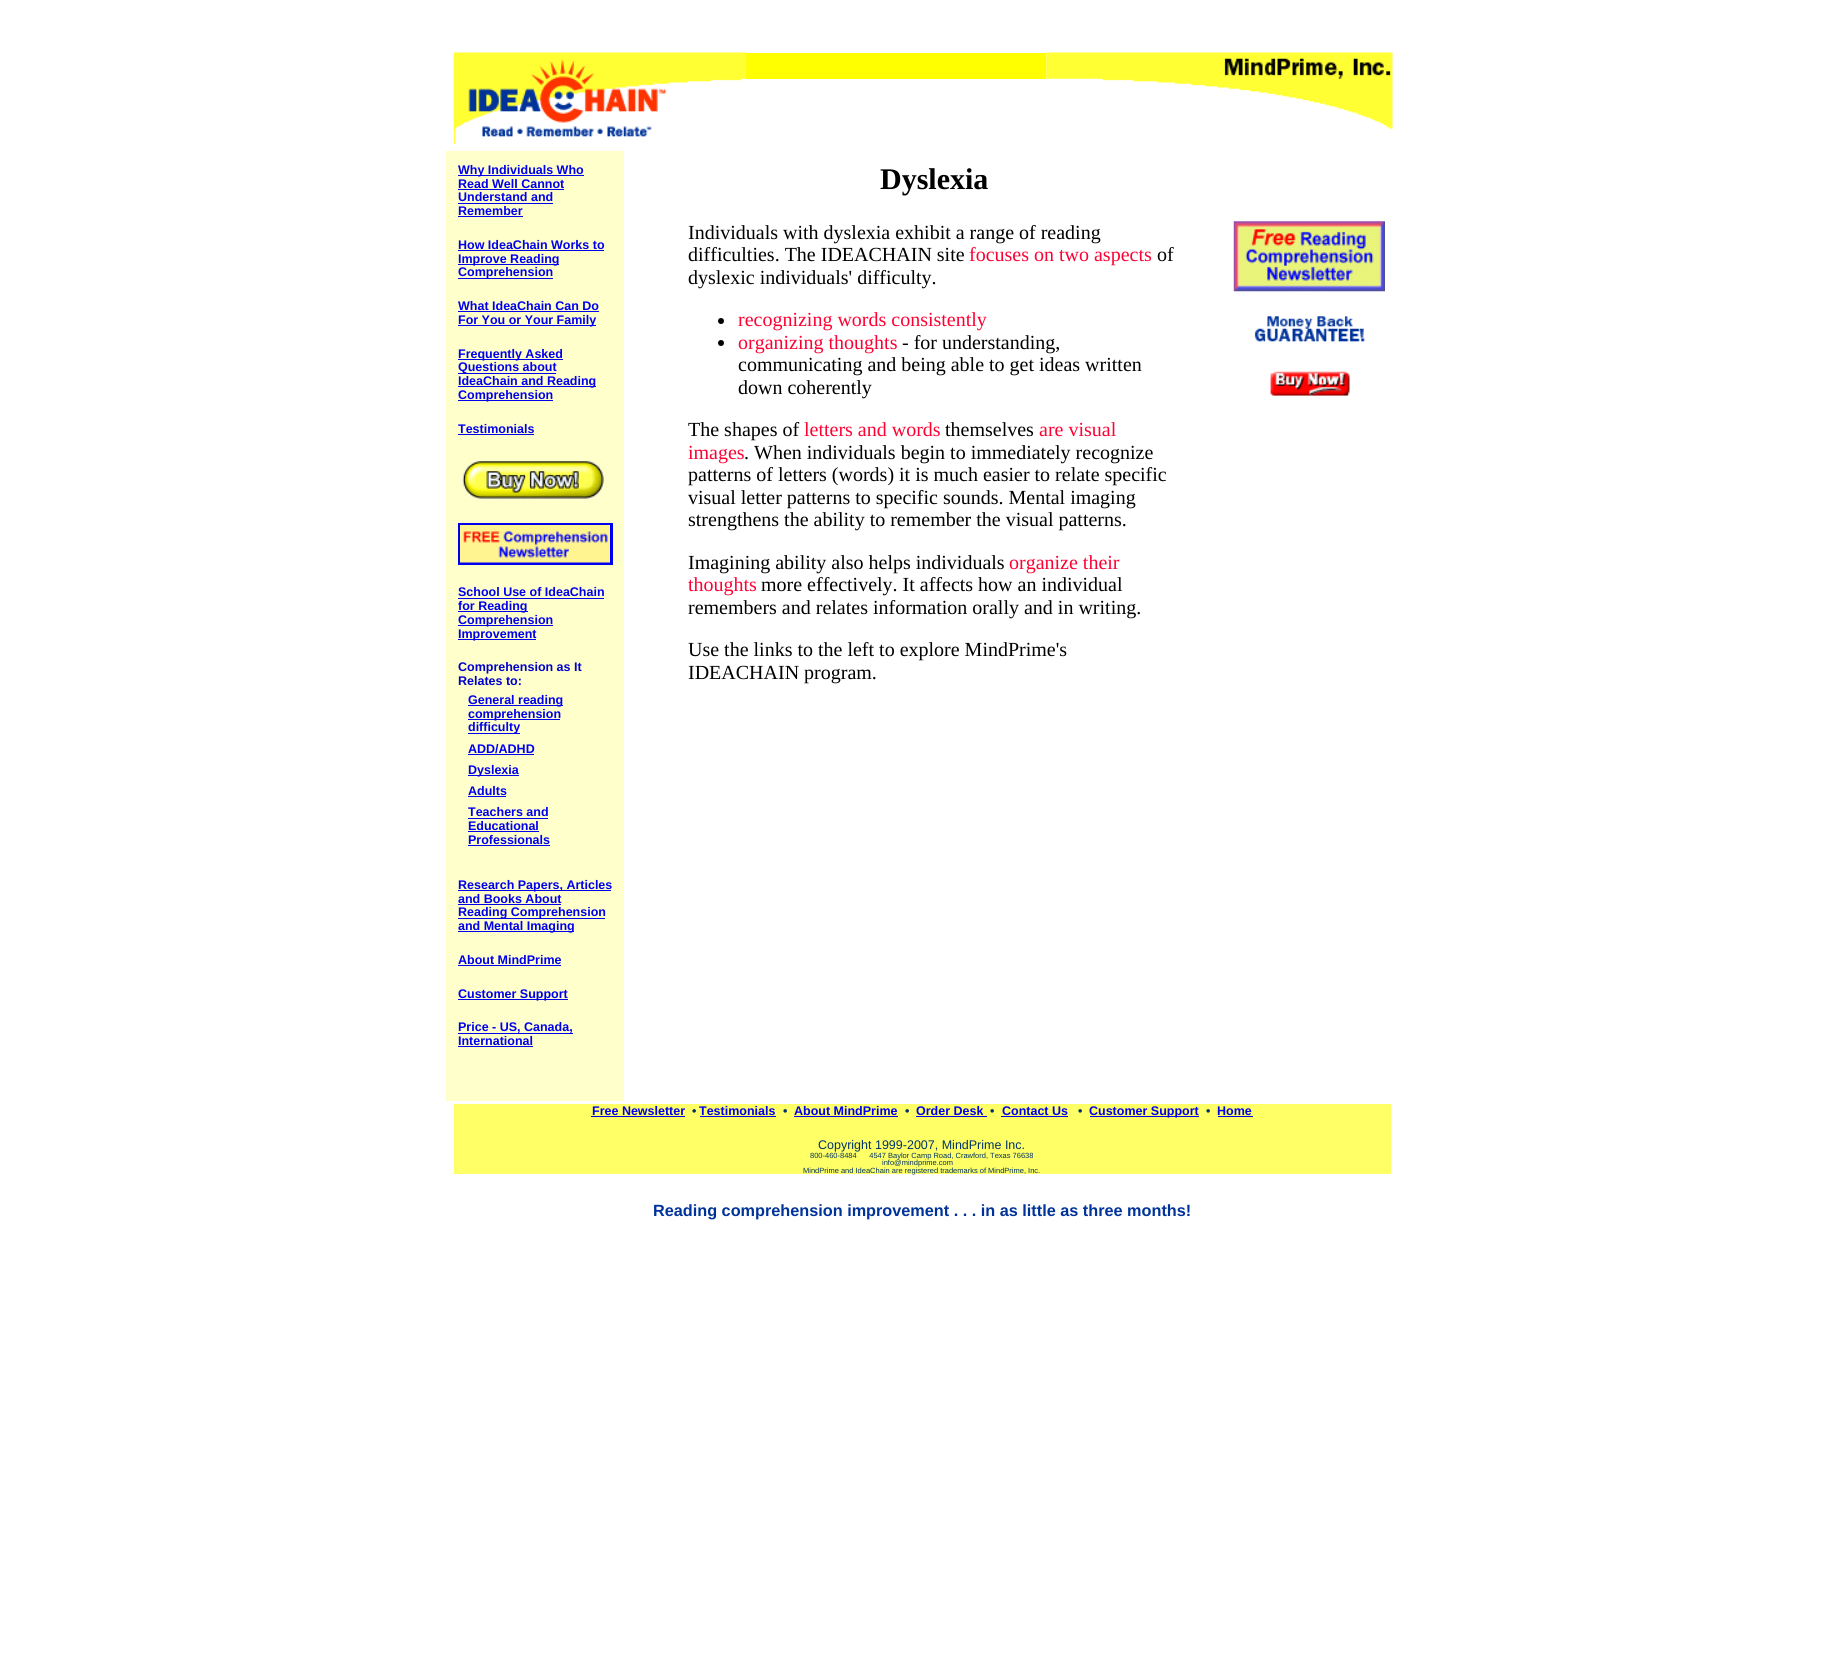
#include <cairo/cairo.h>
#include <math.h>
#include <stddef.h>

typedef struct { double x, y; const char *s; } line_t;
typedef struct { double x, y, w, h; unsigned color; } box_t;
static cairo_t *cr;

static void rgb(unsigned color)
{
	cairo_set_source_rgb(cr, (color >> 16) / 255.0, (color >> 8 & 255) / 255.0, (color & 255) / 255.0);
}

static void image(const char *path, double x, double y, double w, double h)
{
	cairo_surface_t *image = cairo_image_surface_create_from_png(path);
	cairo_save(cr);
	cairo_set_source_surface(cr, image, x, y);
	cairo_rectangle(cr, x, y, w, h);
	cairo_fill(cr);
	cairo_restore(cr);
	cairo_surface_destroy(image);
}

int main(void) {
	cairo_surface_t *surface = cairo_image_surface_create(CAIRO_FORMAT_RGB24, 1844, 1666);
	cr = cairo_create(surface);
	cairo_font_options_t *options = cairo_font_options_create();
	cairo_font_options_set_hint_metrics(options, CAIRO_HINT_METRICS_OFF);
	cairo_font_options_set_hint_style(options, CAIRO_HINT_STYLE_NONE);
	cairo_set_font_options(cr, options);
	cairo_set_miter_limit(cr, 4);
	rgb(0xffffff);
	cairo_paint(cr);
	rgb(0xffff00);
	cairo_rectangle(cr, 746, 53, 300, 26);
	cairo_fill(cr);
	image("img/1.png", 453, 52, 294, 92);
	image("img/2.png", 1046, 52, 347, 77);
	{
		static const box_t items[] = {
			{446, 151, 178, 950, 0xffffcc},
			{458, 175, 126, 1, 0x0000ee},
			{458, 189, 106, 1, 0x0000ee},
			{458, 203, 95, 1, 0x0000ee},
			{458, 216, 65, 1, 0x0000ee},
			{458, 250, 146, 1, 0x0000ee},
			{458, 264, 101, 1, 0x0000ee},
			{458, 278, 95, 1, 0x0000ee},
			{458, 311, 141, 1, 0x0000ee},
			{458, 325, 138, 1, 0x0000ee},
			{458, 359, 105, 1, 0x0000ee},
			{458, 373, 98, 1, 0x0000ee},
			{458, 386, 138, 1, 0x0000ee},
			{458, 400, 95, 1, 0x0000ee},
			{458, 434, 76, 1, 0x0000ee},
		};
		for (size_t i = 0; i < sizeof items / sizeof *items; i++) {
			rgb(items[i].color);
			cairo_rectangle(cr, items[i].x, items[i].y, items[i].w, items[i].h);
			cairo_fill(cr);
		}
	}
	image("img/3.png", 462, 461, 142, 38);
	cairo_rectangle(cr, 459.5, 524.5, 152, 39);
	cairo_set_line_width(cr, 3);
	cairo_stroke(cr);
	image("img/4.png", 460, 525, 150, 38);
	{
		static const box_t items[] = {
			{458, 598, 146, 1, 0x0000ee},
			{458, 611, 70, 1, 0x0000ee},
			{458, 625, 95, 1, 0x0000ee},
			{458, 639, 78, 1, 0x0000ee},
			{468, 705, 95, 1, 0x0000ee},
			{468, 719, 92, 1, 0x0000ee},
			{468, 733, 52, 1, 0x0000ee},
			{468, 754, 66, 1, 0x0000ee},
			{468, 775, 51, 1, 0x0000ee},
			{468, 796, 38, 1, 0x0000ee},
			{468, 818, 80, 1, 0x0000ee},
			{468, 831, 71, 1, 0x0000ee},
			{468, 845, 82, 1, 0x0000ee},
			{458, 890, 153, 1, 0x0000ee},
			{458, 904, 103, 1, 0x0000ee},
			{458, 918, 147, 1, 0x0000ee},
			{458, 931, 116, 1, 0x0000ee},
			{458, 965, 103, 1, 0x0000ee},
			{458, 999, 110, 1, 0x0000ee},
			{458, 1033, 115, 1, 0x0000ee},
			{458, 1046, 75, 1, 0x0000ee},
		};
		for (size_t i = 0; i < sizeof items / sizeof *items; i++) {
			rgb(items[i].color);
			cairo_rectangle(cr, items[i].x, items[i].y, items[i].w, items[i].h);
			cairo_fill(cr);
		}
	}
	rgb(0x000000);
	cairo_arc(cr, 721, 321, 3, 0, 2 * M_PI);
	cairo_fill(cr);
	cairo_arc(cr, 721, 343, 3, 0, 2 * M_PI);
	cairo_fill(cr);
	image("img/5.png", 1233, 221, 152, 71);
	image("img/6.png", 1254, 316, 112, 26);
	image("img/7.png", 1270, 371, 80, 25);
	{
		static const box_t items[] = {
			{454, 1104, 937, 70, 0xffff66},
			{591, 1116, 94, 1, 0x0000ee},
			{700, 1116, 76, 1, 0x0000ee},
			{794, 1116, 104, 1, 0x0000ee},
			{916, 1116, 71, 1, 0x0000ee},
			{1001, 1116, 67, 1, 0x0000ee},
			{1090, 1116, 109, 1, 0x0000ee},
			{1218, 1116, 35, 1, 0x0000ee},
		};
		for (size_t i = 0; i < sizeof items / sizeof *items; i++) {
			rgb(items[i].color);
			cairo_rectangle(cr, items[i].x, items[i].y, items[i].w, items[i].h);
			cairo_fill(cr);
		}
	}
	cairo_select_font_face(cr, "Liberation Sans", CAIRO_FONT_SLANT_NORMAL, CAIRO_FONT_WEIGHT_BOLD);
	cairo_set_font_size(cr, 12.5);
	{
		static const line_t items[] = {
			{458, 174, "Why Individuals Who"},
			{458, 188, "Read Well Cannot"},
			{458, 201, "Understand and"},
			{458, 215, "Remember"},
			{458, 249, "How IdeaChain Works to"},
			{458, 263, "Improve Reading"},
			{458, 276, "Comprehension"},
			{458, 310, "What IdeaChain Can Do"},
			{458, 324, "For You or Your Family"},
			{458, 358, "Frequently Asked"},
			{458, 371, "Questions about"},
			{458, 385, "IdeaChain and Reading"},
			{458, 399, "Comprehension"},
			{458, 433, "Testimonials"},
			{458, 596, "School Use of IdeaChain"},
			{458, 610, "for Reading"},
			{458, 624, "Comprehension"},
			{458, 638, "Improvement"},
		};
		for (size_t i = 0; i < sizeof items / sizeof *items; i++) {
			cairo_move_to(cr, items[i].x, items[i].y);
			cairo_show_text(cr, items[i].s);
		}
	}
	rgb(0x0000cc);
	cairo_move_to(cr, 458, 671);
	cairo_show_text(cr, "Comprehension as It");
	cairo_move_to(cr, 458, 685);
	cairo_show_text(cr, "Relates to:");
	rgb(0x0000ee);
	{
		static const line_t items[] = {
			{468, 704, "General reading"},
			{468, 718, "comprehension"},
			{468, 731, "difficulty"},
			{468, 753, "ADD/ADHD"},
			{468, 774, "Dyslexia"},
			{468, 795, "Adults"},
			{468, 816, "Teachers and"},
			{468, 830, "Educational"},
			{468, 844, "Professionals"},
			{458, 889, "Research Papers, Articles"},
			{458, 903, "and Books About"},
			{458, 916, "Reading Comprehension"},
			{458, 930, "and Mental Imaging"},
			{458, 964, "About MindPrime"},
			{458, 998, "Customer Support"},
			{458, 1031, "Price - US, Canada,"},
			{458, 1045, "International"},
		};
		for (size_t i = 0; i < sizeof items / sizeof *items; i++) {
			cairo_move_to(cr, items[i].x, items[i].y);
			cairo_show_text(cr, items[i].s);
		}
	}
	cairo_select_font_face(cr, "Liberation Serif", CAIRO_FONT_SLANT_NORMAL, CAIRO_FONT_WEIGHT_BOLD);
	cairo_set_font_size(cr, 30);
	rgb(0x000000);
	cairo_move_to(cr, 880, 189);
	cairo_show_text(cr, "Dyslexia");
	cairo_select_font_face(cr, "Liberation Serif", CAIRO_FONT_SLANT_NORMAL, CAIRO_FONT_WEIGHT_NORMAL);
	cairo_set_font_size(cr, 20);
	cairo_move_to(cr, 688, 239);
	cairo_show_text(cr, "Individuals with dyslexia exhibit a range of reading");
	cairo_move_to(cr, 688, 261);
	cairo_show_text(cr, "difficulties. The IDEACHAIN site");
	rgb(0xff0033);
	cairo_move_to(cr, 969, 261);
	cairo_show_text(cr, "focuses on two aspects");
	rgb(0x000000);
	cairo_move_to(cr, 1157, 261);
	cairo_show_text(cr, "of");
	cairo_move_to(cr, 688, 284);
	cairo_show_text(cr, "dyslexic individuals' difficulty.");
	rgb(0xff0033);
	cairo_move_to(cr, 738, 326);
	cairo_show_text(cr, "recognizing words consistently");
	cairo_move_to(cr, 738, 349);
	cairo_show_text(cr, "organizing thoughts");
	rgb(0x000000);
	{
		static const line_t items[] = {
			{902, 349, "- for understanding,"},
			{738, 371, "communicating and being able to get ideas written"},
			{738, 394, "down coherently"},
			{688, 436, "The shapes of"},
		};
		for (size_t i = 0; i < sizeof items / sizeof *items; i++) {
			cairo_move_to(cr, items[i].x, items[i].y);
			cairo_show_text(cr, items[i].s);
		}
	}
	rgb(0xff0033);
	cairo_move_to(cr, 804, 436);
	cairo_show_text(cr, "letters and words");
	rgb(0x000000);
	cairo_move_to(cr, 945, 436);
	cairo_show_text(cr, "themselves");
	rgb(0xff0033);
	cairo_move_to(cr, 1039, 436);
	cairo_show_text(cr, "are visual");
	cairo_move_to(cr, 688, 459);
	cairo_show_text(cr, "images");
	rgb(0x000000);
	{
		static const line_t items[] = {
			{744, 459, ". When individuals begin to immediately recognize"},
			{688, 481, "patterns of letters (words) it is much easier to relate specific"},
			{688, 504, "visual letter patterns to specific sounds. Mental imaging"},
			{688, 526, "strengthens the ability to remember the visual patterns."},
			{688, 569, "Imagining ability also helps individuals"},
		};
		for (size_t i = 0; i < sizeof items / sizeof *items; i++) {
			cairo_move_to(cr, items[i].x, items[i].y);
			cairo_show_text(cr, items[i].s);
		}
	}
	rgb(0xff0033);
	cairo_move_to(cr, 1009, 569);
	cairo_show_text(cr, "organize their");
	cairo_move_to(cr, 688, 591);
	cairo_show_text(cr, "thoughts");
	rgb(0x000000);
	{
		static const line_t items[] = {
			{761, 591, "more effectively. It affects how an individual"},
			{688, 614, "remembers and relates information orally and in writing."},
			{688, 656, "Use the links to the left to explore MindPrime's"},
			{688, 679, "IDEACHAIN program."},
		};
		for (size_t i = 0; i < sizeof items / sizeof *items; i++) {
			cairo_move_to(cr, items[i].x, items[i].y);
			cairo_show_text(cr, items[i].s);
		}
	}
	cairo_select_font_face(cr, "Liberation Sans", CAIRO_FONT_SLANT_NORMAL, CAIRO_FONT_WEIGHT_BOLD);
	cairo_set_font_size(cr, 12.5);
	rgb(0x0000ee);
	cairo_move_to(cr, 592, 1115);
	cairo_show_text(cr, "Free Newsletter");
	rgb(0x003366);
	cairo_move_to(cr, 692, 1115);
	cairo_show_text(cr, "•");
	rgb(0x0000ee);
	cairo_move_to(cr, 699, 1115);
	cairo_show_text(cr, "Testimonials");
	rgb(0x003366);
	cairo_move_to(cr, 783, 1115);
	cairo_show_text(cr, "•");
	rgb(0x0000ee);
	cairo_move_to(cr, 794, 1115);
	cairo_show_text(cr, "About MindPrime");
	rgb(0x003366);
	cairo_move_to(cr, 905, 1115);
	cairo_show_text(cr, "•");
	rgb(0x0000ee);
	cairo_move_to(cr, 916, 1115);
	cairo_show_text(cr, "Order Desk");
	rgb(0x003366);
	cairo_move_to(cr, 990, 1115);
	cairo_show_text(cr, "•");
	rgb(0x0000ee);
	cairo_move_to(cr, 1002, 1115);
	cairo_show_text(cr, "Contact Us");
	rgb(0x003366);
	cairo_move_to(cr, 1078, 1115);
	cairo_show_text(cr, "•");
	rgb(0x0000ee);
	cairo_move_to(cr, 1089, 1115);
	cairo_show_text(cr, "Customer Support");
	rgb(0x003366);
	cairo_move_to(cr, 1206, 1115);
	cairo_show_text(cr, "•");
	rgb(0x0000ee);
	cairo_move_to(cr, 1217, 1115);
	cairo_show_text(cr, "Home");
	cairo_select_font_face(cr, "Liberation Sans", CAIRO_FONT_SLANT_NORMAL, CAIRO_FONT_WEIGHT_NORMAL);
	rgb(0x003366);
	cairo_move_to(cr, 818, 1149);
	cairo_show_text(cr, "Copyright 1999-2007, MindPrime Inc.");
	cairo_set_font_size(cr, 7.5);
	{
		static const line_t items[] = {
			{810, 1158, "800-460-8484      4547 Baylor Camp Road, Crawford, Texas 76638"},
			{882, 1165, "info@mindprime.com"},
			{803, 1173, "MindPrime and IdeaChain are registered trademarks of MindPrime, Inc."},
		};
		for (size_t i = 0; i < sizeof items / sizeof *items; i++) {
			cairo_move_to(cr, items[i].x, items[i].y);
			cairo_show_text(cr, items[i].s);
		}
	}
	cairo_select_font_face(cr, "Liberation Sans", CAIRO_FONT_SLANT_NORMAL, CAIRO_FONT_WEIGHT_BOLD);
	cairo_set_font_size(cr, 16.25);
	rgb(0x003399);
	cairo_move_to(cr, 653, 1216);
	cairo_show_text(cr, "Reading comprehension improvement . . . in as little as three months!");
	cairo_surface_write_to_png(surface, "page.png");
	cairo_font_options_destroy(options);
	cairo_destroy(cr);
	cairo_surface_destroy(surface);
	return 0;
}
